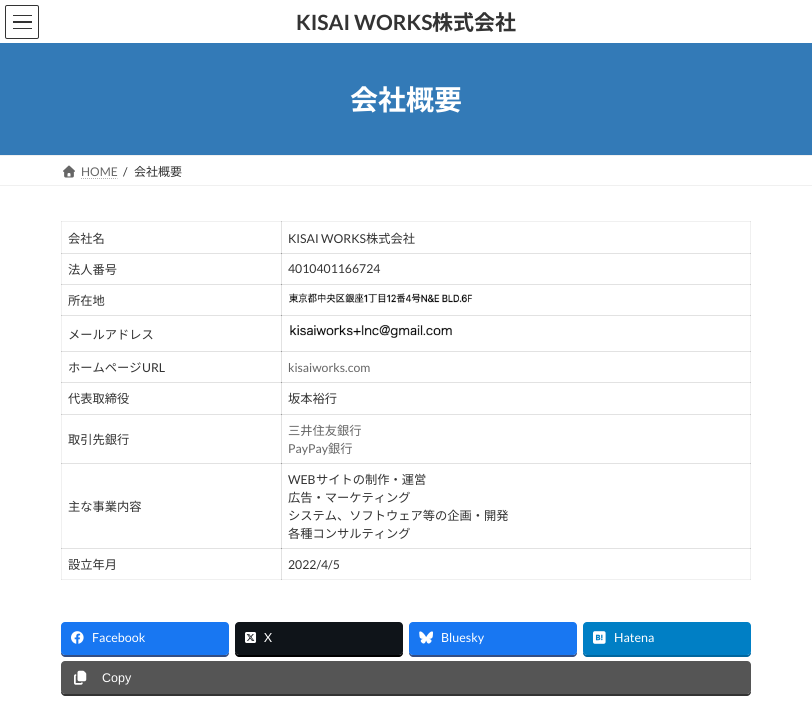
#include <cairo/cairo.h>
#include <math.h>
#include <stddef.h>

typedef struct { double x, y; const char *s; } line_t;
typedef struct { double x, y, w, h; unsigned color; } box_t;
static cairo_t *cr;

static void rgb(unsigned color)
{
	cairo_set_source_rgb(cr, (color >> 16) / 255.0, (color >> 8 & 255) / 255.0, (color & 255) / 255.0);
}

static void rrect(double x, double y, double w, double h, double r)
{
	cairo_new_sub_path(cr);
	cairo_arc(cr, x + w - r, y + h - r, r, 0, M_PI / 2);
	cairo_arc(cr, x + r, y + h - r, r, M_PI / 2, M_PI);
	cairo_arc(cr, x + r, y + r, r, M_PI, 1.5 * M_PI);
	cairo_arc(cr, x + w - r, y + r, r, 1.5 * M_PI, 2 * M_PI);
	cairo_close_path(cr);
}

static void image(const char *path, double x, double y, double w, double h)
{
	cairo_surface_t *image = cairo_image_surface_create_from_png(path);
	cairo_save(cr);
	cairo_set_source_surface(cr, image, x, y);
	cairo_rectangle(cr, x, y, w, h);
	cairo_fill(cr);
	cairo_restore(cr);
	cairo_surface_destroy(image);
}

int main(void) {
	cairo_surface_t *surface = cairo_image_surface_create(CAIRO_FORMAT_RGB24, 812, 716);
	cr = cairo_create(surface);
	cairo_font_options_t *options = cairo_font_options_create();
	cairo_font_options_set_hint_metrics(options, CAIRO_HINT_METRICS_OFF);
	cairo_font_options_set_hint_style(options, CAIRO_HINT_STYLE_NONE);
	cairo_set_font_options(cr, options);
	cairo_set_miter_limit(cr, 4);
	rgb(0xffffff);
	cairo_paint(cr);
	{
		static const box_t items[] = {
			{61, 221, 1, 359, 0xf0f0f0},
			{61, 221, 221, 1, 0xf0f0f0},
			{61, 221, 1, 1, 0xe2e2e2},
			{281, 221, 1, 33, 0xe2e2e2},
			{750, 221, 1, 328, 0xf0f0f0},
			{61, 253, 221, 1, 0xe2e2e2},
			{61, 253, 1, 1, 0xc7c7c7},
			{281, 253, 1, 32, 0xe2e2e2},
			{61, 284, 221, 1, 0xe2e2e2},
			{61, 284, 1, 1, 0xc7c7c7},
			{281, 284, 1, 32, 0xe2e2e2},
			{61, 315, 221, 1, 0xe2e2e2},
			{61, 315, 1, 1, 0xc7c7c7},
			{281, 315, 1, 37, 0xe2e2e2},
			{61, 351, 221, 1, 0xe2e2e2},
			{61, 351, 1, 1, 0xc7c7c7},
			{281, 351, 1, 32, 0xe2e2e2},
			{61, 382, 221, 1, 0xe2e2e2},
			{61, 382, 1, 1, 0xc7c7c7},
			{281, 382, 1, 33, 0xe2e2e2},
			{61, 414, 221, 1, 0xe2e2e2},
			{61, 414, 1, 1, 0xc7c7c7},
			{281, 414, 1, 50, 0xe2e2e2},
			{61, 463, 221, 1, 0xe2e2e2},
			{61, 463, 1, 1, 0xc7c7c7},
			{281, 463, 1, 86, 0xe2e2e2},
			{61, 579, 221, 1, 0xf0f0f0},
			{61, 579, 1, 1, 0xe2e2e2},
			{61, 548, 221, 1, 0xe2e2e2},
			{61, 548, 1, 1, 0xc7c7c7},
			{281, 548, 1, 32, 0xe2e2e2},
			{281, 579, 470, 1, 0xf0f0f0},
			{281, 579, 1, 1, 0xc7c7c7},
			{750, 548, 1, 32, 0xf0f0f0},
			{750, 579, 1, 1, 0xe2e2e2},
			{13, 15, 19, 1, 0x333333},
			{13, 21, 19, 2, 0x333333},
			{13, 28, 19, 1, 0x333333},
		};
		for (size_t i = 0; i < sizeof items / sizeof *items; i++) {
			rgb(items[i].color);
			cairo_rectangle(cr, items[i].x, items[i].y, items[i].w, items[i].h);
			cairo_fill(cr);
		}
	}
	rrect(5.5, 5.5, 33, 33, 1.5);
	cairo_set_line_width(cr, 1);
	cairo_stroke(cr);
	{
		static const box_t items[] = {
			{0, 43, 812, 112, 0x337ab7},
			{0, 155, 812, 1, 0xf0f0f0},
			{0, 185, 812, 1, 0xf0f0f0},
		};
		for (size_t i = 0; i < sizeof items / sizeof *items; i++) {
			rgb(items[i].color);
			cairo_rectangle(cr, items[i].x, items[i].y, items[i].w, items[i].h);
			cairo_fill(cr);
		}
	}
	image("img/1.png", 63, 165, 12, 13);
	cairo_new_path(cr);
	cairo_move_to(cr, 81, 178.5);
	cairo_line_to(cr, 117.5, 178.5);
	rgb(0xb3b3b3);
	cairo_set_dash(cr, (double[]){1, 1}, 2, 0);
	cairo_stroke(cr);
	{
		static const box_t items[] = {
			{281, 221, 470, 1, 0xf0f0f0},
			{281, 221, 1, 1, 0xc7c7c7},
			{750, 221, 1, 1, 0xe2e2e2},
			{281, 253, 470, 1, 0xe2e2e2},
			{281, 253, 1, 1, 0x9b9b9b},
			{750, 253, 1, 1, 0xc7c7c7},
			{281, 284, 470, 1, 0xe2e2e2},
			{281, 284, 1, 1, 0x9b9b9b},
			{750, 284, 1, 1, 0xc7c7c7},
		};
		for (size_t i = 0; i < sizeof items / sizeof *items; i++) {
			rgb(items[i].color);
			cairo_rectangle(cr, items[i].x, items[i].y, items[i].w, items[i].h);
			cairo_fill(cr);
		}
	}
	image("img/2.png", 289, 293, 184, 10);
	{
		static const box_t items[] = {
			{281, 315, 470, 1, 0xe2e2e2},
			{281, 315, 1, 1, 0x9b9b9b},
			{750, 315, 1, 1, 0xc7c7c7},
		};
		for (size_t i = 0; i < sizeof items / sizeof *items; i++) {
			rgb(items[i].color);
			cairo_rectangle(cr, items[i].x, items[i].y, items[i].w, items[i].h);
			cairo_fill(cr);
		}
	}
	image("img/3.png", 290, 324, 162, 14);
	{
		static const box_t items[] = {
			{281, 351, 470, 1, 0xe2e2e2},
			{281, 351, 1, 1, 0x9b9b9b},
			{750, 351, 1, 1, 0xc7c7c7},
			{281, 382, 470, 1, 0xe2e2e2},
			{281, 382, 1, 1, 0x9b9b9b},
			{750, 382, 1, 1, 0xc7c7c7},
			{281, 414, 470, 1, 0xe2e2e2},
			{281, 414, 1, 1, 0x9b9b9b},
			{750, 414, 1, 1, 0xc7c7c7},
			{281, 463, 470, 1, 0xe2e2e2},
			{281, 463, 1, 1, 0x9b9b9b},
			{750, 463, 1, 1, 0xc7c7c7},
			{281, 548, 470, 1, 0xe2e2e2},
			{281, 548, 1, 1, 0x9b9b9b},
			{750, 548, 1, 1, 0xc7c7c7},
		};
		for (size_t i = 0; i < sizeof items / sizeof *items; i++) {
			rgb(items[i].color);
			cairo_rectangle(cr, items[i].x, items[i].y, items[i].w, items[i].h);
			cairo_fill(cr);
		}
	}
	rgb(0x344e84);
	cairo_new_path(cr);
	cairo_move_to(cr, 61, 651);
	cairo_line_to(cr, 61, 653);
	cairo_curve_to(cr, 61, 655, 63, 657, 65, 657);
	cairo_line_to(cr, 225, 657);
	cairo_curve_to(cr, 227, 657, 229, 655, 229, 653);
	cairo_line_to(cr, 229, 651);
	cairo_curve_to(cr, 229, 653, 227, 655, 225, 655);
	cairo_line_to(cr, 65, 655);
	cairo_curve_to(cr, 63, 655, 61, 653, 61, 651);
	cairo_close_path(cr);
	cairo_fill(cr);
	rgb(0x1877f2);
	rrect(61, 622, 168, 33, 4);
	cairo_fill(cr);
	image("img/4.png", 71, 631, 13, 13);
	rgb(0x000000);
	cairo_new_path(cr);
	cairo_move_to(cr, 235, 651);
	cairo_line_to(cr, 235, 653);
	cairo_curve_to(cr, 235, 655, 237, 657, 239, 657);
	cairo_line_to(cr, 399, 657);
	cairo_curve_to(cr, 401, 657, 403, 655, 403, 653);
	cairo_line_to(cr, 403, 651);
	cairo_curve_to(cr, 403, 653, 401, 655, 399, 655);
	cairo_line_to(cr, 239, 655);
	cairo_curve_to(cr, 237, 655, 235, 653, 235, 651);
	cairo_close_path(cr);
	cairo_fill(cr);
	rgb(0x0f1419);
	rrect(235, 622, 168, 33, 4);
	cairo_fill(cr);
	image("img/5.png", 245, 632, 12, 11);
	rgb(0x344e84);
	cairo_new_path(cr);
	cairo_move_to(cr, 409, 651);
	cairo_line_to(cr, 409, 653);
	cairo_curve_to(cr, 409, 655, 411, 657, 413, 657);
	cairo_line_to(cr, 573, 657);
	cairo_curve_to(cr, 575, 657, 577, 655, 577, 653);
	cairo_line_to(cr, 577, 651);
	cairo_curve_to(cr, 577, 653, 575, 655, 573, 655);
	cairo_line_to(cr, 413, 655);
	cairo_curve_to(cr, 411, 655, 409, 653, 409, 651);
	cairo_close_path(cr);
	cairo_fill(cr);
	rgb(0x1877f2);
	rrect(409, 622, 168, 33, 4);
	cairo_fill(cr);
	image("img/6.png", 419, 631, 14, 13);
	rgb(0x00679f);
	cairo_new_path(cr);
	cairo_move_to(cr, 583, 651);
	cairo_line_to(cr, 583, 653);
	cairo_curve_to(cr, 583, 655, 585, 657, 587, 657);
	cairo_line_to(cr, 747, 657);
	cairo_curve_to(cr, 749, 657, 751, 655, 751, 653);
	cairo_line_to(cr, 751, 651);
	cairo_curve_to(cr, 751, 653, 749, 655, 747, 655);
	cairo_line_to(cr, 587, 655);
	cairo_curve_to(cr, 585, 655, 583, 653, 583, 651);
	cairo_close_path(cr);
	cairo_fill(cr);
	rgb(0x007fc5);
	rrect(583, 622, 168, 33, 4);
	cairo_fill(cr);
	image("img/7.png", 593, 631, 13, 13);
	rgb(0x333333);
	cairo_new_path(cr);
	cairo_move_to(cr, 61, 690);
	cairo_line_to(cr, 61, 692);
	cairo_curve_to(cr, 61, 694, 63, 696, 65, 696);
	cairo_line_to(cr, 747, 696);
	cairo_curve_to(cr, 749, 696, 751, 694, 751, 692);
	cairo_line_to(cr, 751, 690);
	cairo_curve_to(cr, 751, 692, 749, 694, 747, 694);
	cairo_line_to(cr, 65, 694);
	cairo_curve_to(cr, 63, 694, 61, 692, 61, 690);
	cairo_close_path(cr);
	cairo_fill(cr);
	rgb(0x555555);
	rrect(61, 661, 690, 33, 4);
	cairo_fill(cr);
	image("img/8.png", 74, 670, 13, 15);
	cairo_select_font_face(cr, "Lato", CAIRO_FONT_SLANT_NORMAL, CAIRO_FONT_WEIGHT_BOLD);
	cairo_set_font_size(cr, 21);
	rgb(0x333333);
	cairo_move_to(cr, 296, 30);
	cairo_show_text(cr, "KISAI WORKS");
	cairo_select_font_face(cr, "Noto Sans JP", CAIRO_FONT_SLANT_NORMAL, CAIRO_FONT_WEIGHT_BOLD);
	cairo_move_to(cr, 432, 30);
	cairo_show_text(cr, "株式会社");
	cairo_set_font_size(cr, 28);
	rgb(0xffffff);
	cairo_move_to(cr, 350, 110);
	cairo_show_text(cr, "会社概要");
	cairo_select_font_face(cr, "Lato", CAIRO_FONT_SLANT_NORMAL, CAIRO_FONT_WEIGHT_NORMAL);
	cairo_set_font_size(cr, 12);
	rgb(0x666666);
	cairo_move_to(cr, 81, 176);
	cairo_show_text(cr, "HOME");
	rgb(0x333333);
	cairo_move_to(cr, 123, 176);
	cairo_show_text(cr, "/");
	cairo_select_font_face(cr, "Noto Sans JP", CAIRO_FONT_SLANT_NORMAL, CAIRO_FONT_WEIGHT_NORMAL);
	cairo_move_to(cr, 134, 176);
	cairo_show_text(cr, "会社概要");
	cairo_set_font_size(cr, 12.25);
	cairo_move_to(cr, 68, 243);
	cairo_show_text(cr, "会社名");
	cairo_select_font_face(cr, "Lato", CAIRO_FONT_SLANT_NORMAL, CAIRO_FONT_WEIGHT_NORMAL);
	cairo_move_to(cr, 288, 243);
	cairo_show_text(cr, "KISAI WORKS");
	cairo_select_font_face(cr, "Noto Sans JP", CAIRO_FONT_SLANT_NORMAL, CAIRO_FONT_WEIGHT_NORMAL);
	cairo_move_to(cr, 366, 243);
	cairo_show_text(cr, "株式会社");
	cairo_move_to(cr, 68, 274);
	cairo_show_text(cr, "法人番号");
	cairo_select_font_face(cr, "Lato", CAIRO_FONT_SLANT_NORMAL, CAIRO_FONT_WEIGHT_NORMAL);
	cairo_move_to(cr, 288, 273);
	cairo_show_text(cr, "4010401166724");
	cairo_select_font_face(cr, "Noto Sans JP", CAIRO_FONT_SLANT_NORMAL, CAIRO_FONT_WEIGHT_NORMAL);
	{
		static const line_t items[] = {
			{68, 305, "所在地"},
			{68, 339, "メールアドレス"},
			{68, 372, "ホームページ"},
		};
		for (size_t i = 0; i < sizeof items / sizeof *items; i++) {
			cairo_move_to(cr, items[i].x, items[i].y);
			cairo_show_text(cr, items[i].s);
		}
	}
	cairo_select_font_face(cr, "Lato", CAIRO_FONT_SLANT_NORMAL, CAIRO_FONT_WEIGHT_NORMAL);
	cairo_move_to(cr, 142, 372);
	cairo_show_text(cr, "URL");
	rgb(0x666666);
	cairo_move_to(cr, 288, 372);
	cairo_show_text(cr, "kisaiworks.com");
	cairo_select_font_face(cr, "Noto Sans JP", CAIRO_FONT_SLANT_NORMAL, CAIRO_FONT_WEIGHT_NORMAL);
	rgb(0x333333);
	{
		static const line_t items[] = {
			{68, 403, "代表取締役"},
			{288, 403, "坂本裕行"},
			{68, 444, "取引先銀行"},
		};
		for (size_t i = 0; i < sizeof items / sizeof *items; i++) {
			cairo_move_to(cr, items[i].x, items[i].y);
			cairo_show_text(cr, items[i].s);
		}
	}
	rgb(0x666666);
	cairo_move_to(cr, 288, 435);
	cairo_show_text(cr, "三井住友銀行");
	cairo_select_font_face(cr, "Lato", CAIRO_FONT_SLANT_NORMAL, CAIRO_FONT_WEIGHT_NORMAL);
	cairo_move_to(cr, 288, 453);
	cairo_show_text(cr, "PayPay");
	cairo_select_font_face(cr, "Noto Sans JP", CAIRO_FONT_SLANT_NORMAL, CAIRO_FONT_WEIGHT_NORMAL);
	cairo_move_to(cr, 328, 453);
	cairo_show_text(cr, "銀行");
	rgb(0x333333);
	cairo_move_to(cr, 68, 511);
	cairo_show_text(cr, "主な事業内容");
	cairo_select_font_face(cr, "Lato", CAIRO_FONT_SLANT_NORMAL, CAIRO_FONT_WEIGHT_NORMAL);
	cairo_move_to(cr, 288, 484);
	cairo_show_text(cr, "WEB");
	cairo_select_font_face(cr, "Noto Sans JP", CAIRO_FONT_SLANT_NORMAL, CAIRO_FONT_WEIGHT_NORMAL);
	{
		static const line_t items[] = {
			{316, 484, "サイトの制作・運営"},
			{288, 502, "広告・マーケティング"},
			{288, 520, "システム、ソフトウェア等の企画・開発"},
			{288, 538, "各種コンサルティング"},
			{68, 569, "設立年月"},
		};
		for (size_t i = 0; i < sizeof items / sizeof *items; i++) {
			cairo_move_to(cr, items[i].x, items[i].y);
			cairo_show_text(cr, items[i].s);
		}
	}
	cairo_select_font_face(cr, "Lato", CAIRO_FONT_SLANT_NORMAL, CAIRO_FONT_WEIGHT_NORMAL);
	cairo_move_to(cr, 288, 569);
	cairo_show_text(cr, "2022/4/5");
	cairo_set_font_size(cr, 12.5);
	rgb(0xffffff);
	{
		static const line_t items[] = {
			{92, 642, "Facebook"},
			{264, 642, "X"},
			{441, 642, "Bluesky"},
			{614, 642, "Hatena"},
		};
		for (size_t i = 0; i < sizeof items / sizeof *items; i++) {
			cairo_move_to(cr, items[i].x, items[i].y);
			cairo_show_text(cr, items[i].s);
		}
	}
	cairo_select_font_face(cr, "Liberation Sans", CAIRO_FONT_SLANT_NORMAL, CAIRO_FONT_WEIGHT_NORMAL);
	cairo_move_to(cr, 102, 682);
	cairo_show_text(cr, "Copy");
	cairo_surface_write_to_png(surface, "page.png");
	cairo_font_options_destroy(options);
	cairo_destroy(cr);
	cairo_surface_destroy(surface);
	return 0;
}
